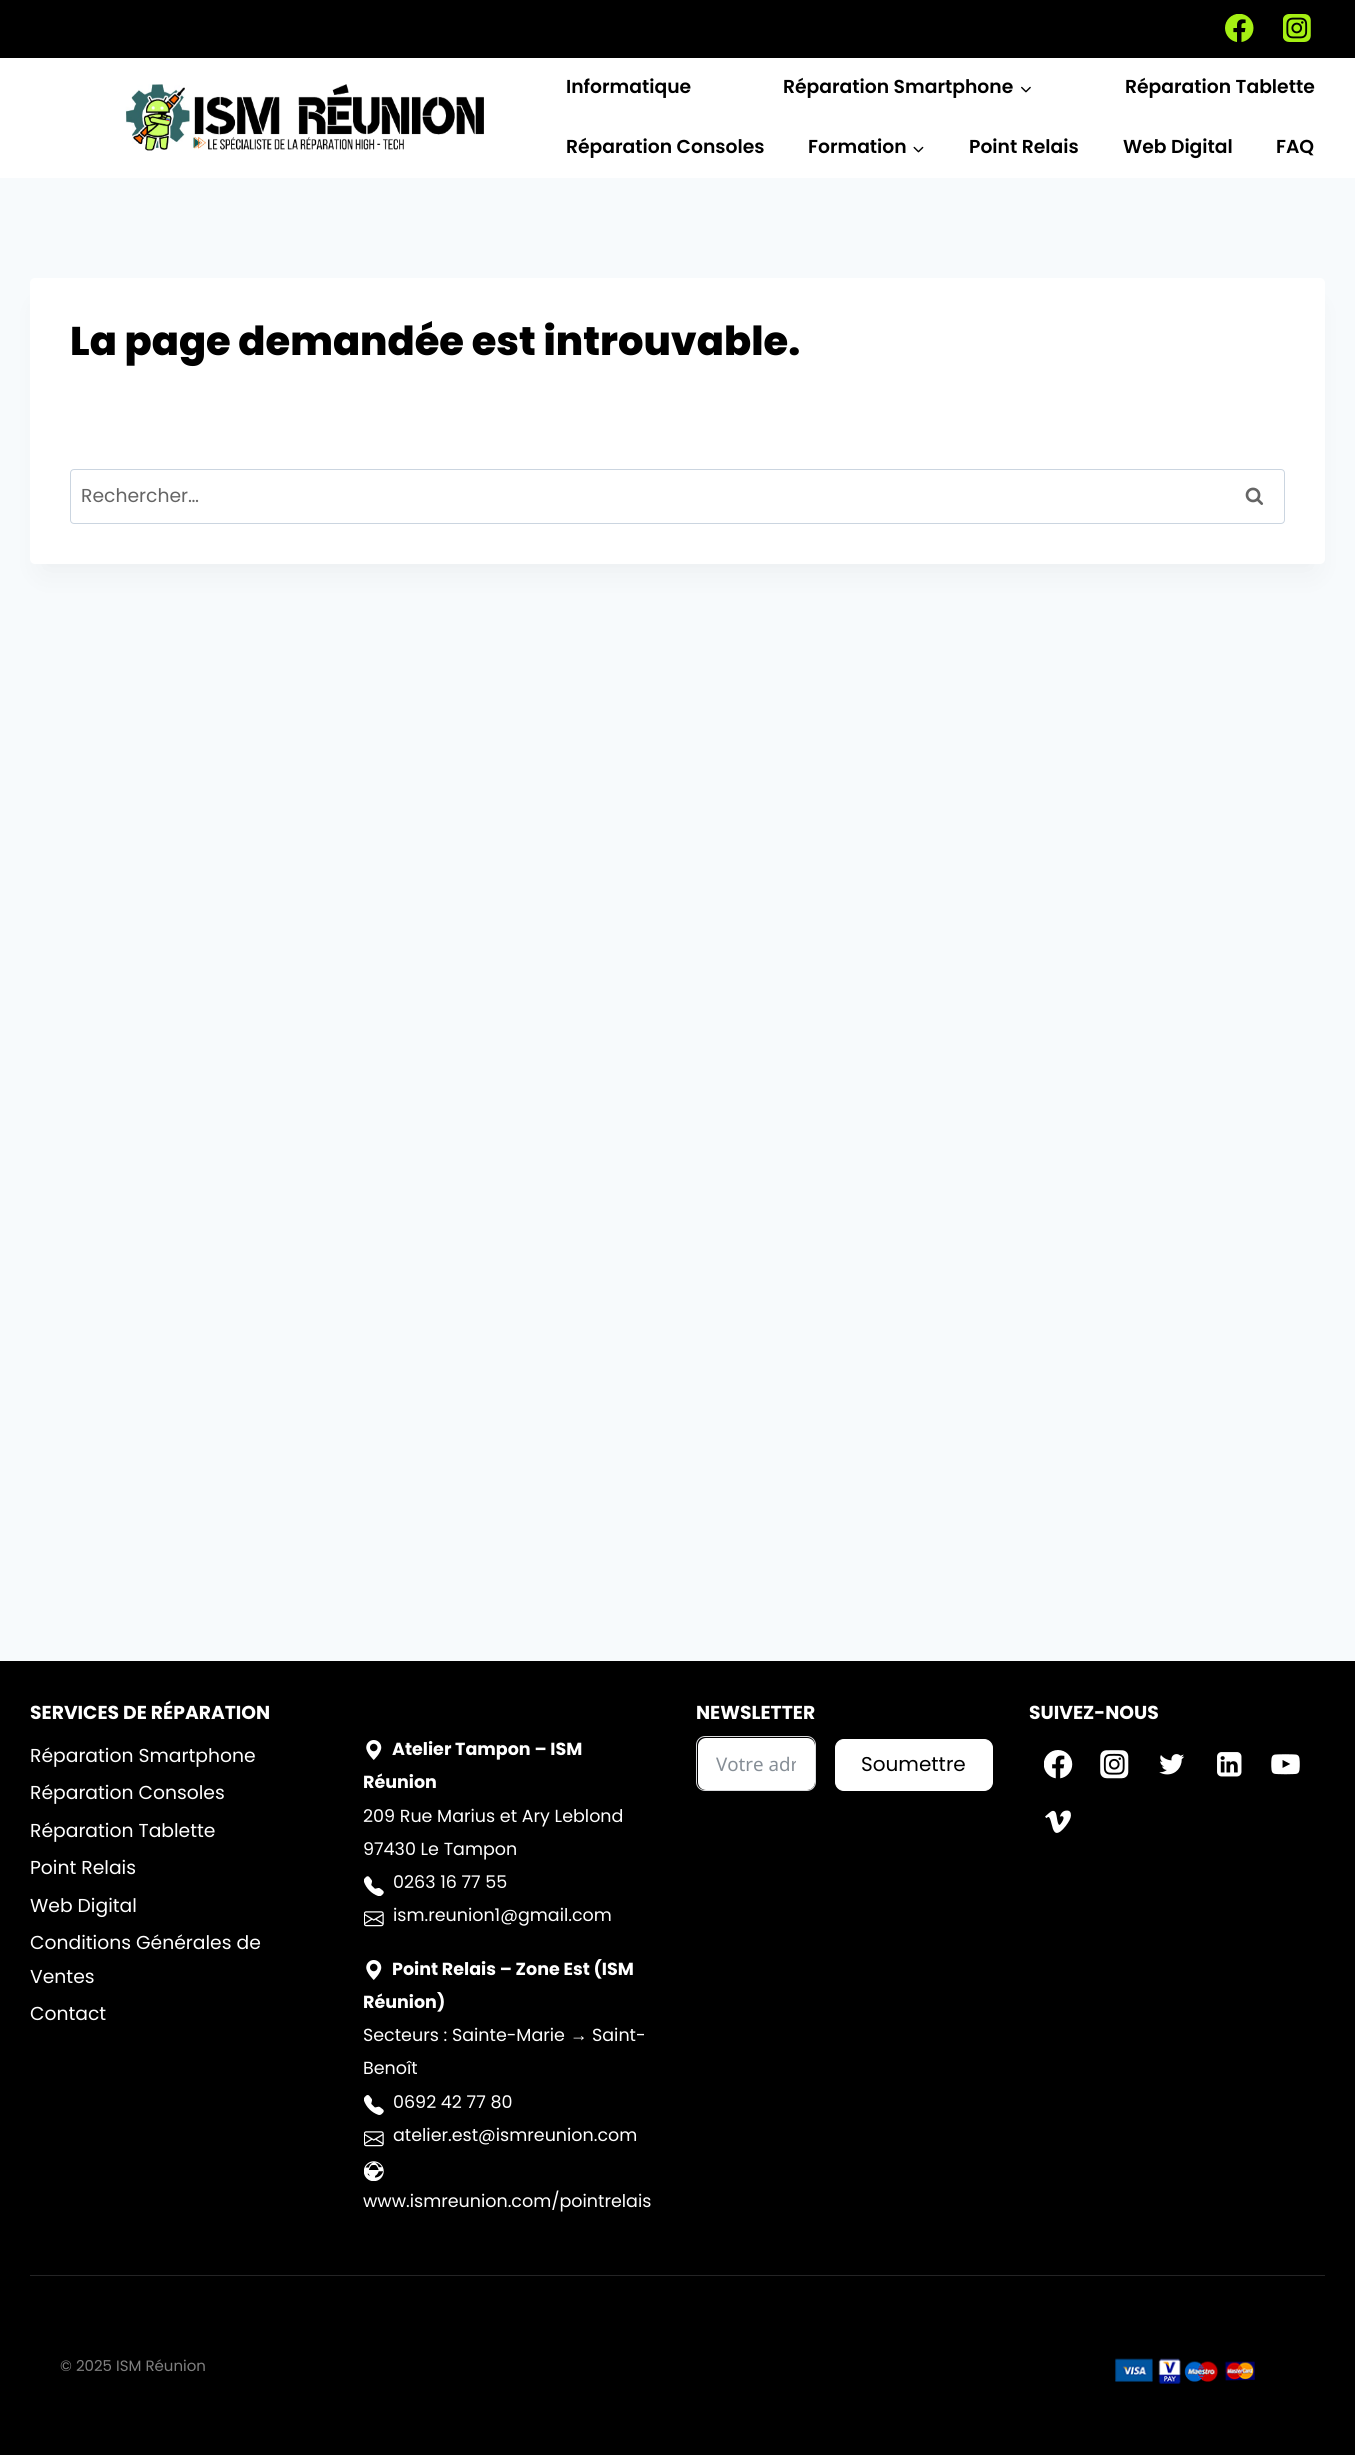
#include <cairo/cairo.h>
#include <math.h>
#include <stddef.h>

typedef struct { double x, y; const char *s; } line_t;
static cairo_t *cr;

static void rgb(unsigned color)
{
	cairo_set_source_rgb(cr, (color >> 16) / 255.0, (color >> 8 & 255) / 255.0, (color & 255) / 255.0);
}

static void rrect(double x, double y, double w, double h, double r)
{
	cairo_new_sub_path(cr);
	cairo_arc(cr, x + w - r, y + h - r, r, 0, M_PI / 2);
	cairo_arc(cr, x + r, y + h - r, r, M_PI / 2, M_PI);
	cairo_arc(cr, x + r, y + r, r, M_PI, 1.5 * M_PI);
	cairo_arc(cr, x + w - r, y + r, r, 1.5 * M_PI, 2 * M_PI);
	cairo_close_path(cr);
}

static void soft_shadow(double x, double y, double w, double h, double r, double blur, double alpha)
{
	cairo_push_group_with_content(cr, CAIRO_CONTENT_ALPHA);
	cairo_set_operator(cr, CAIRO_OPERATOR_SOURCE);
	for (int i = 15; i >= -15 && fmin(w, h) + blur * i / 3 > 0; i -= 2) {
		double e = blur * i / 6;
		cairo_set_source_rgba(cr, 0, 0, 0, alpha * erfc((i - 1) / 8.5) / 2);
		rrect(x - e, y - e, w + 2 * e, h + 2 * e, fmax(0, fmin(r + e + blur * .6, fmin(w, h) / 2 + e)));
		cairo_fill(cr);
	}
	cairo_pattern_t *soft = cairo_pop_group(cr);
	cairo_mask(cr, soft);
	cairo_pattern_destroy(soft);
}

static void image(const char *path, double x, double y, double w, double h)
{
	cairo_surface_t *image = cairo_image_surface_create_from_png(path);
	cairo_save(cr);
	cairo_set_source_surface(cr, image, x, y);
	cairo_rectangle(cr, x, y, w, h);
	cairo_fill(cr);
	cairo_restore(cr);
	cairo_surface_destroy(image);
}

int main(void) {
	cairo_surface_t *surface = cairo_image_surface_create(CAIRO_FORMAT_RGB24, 1355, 2455);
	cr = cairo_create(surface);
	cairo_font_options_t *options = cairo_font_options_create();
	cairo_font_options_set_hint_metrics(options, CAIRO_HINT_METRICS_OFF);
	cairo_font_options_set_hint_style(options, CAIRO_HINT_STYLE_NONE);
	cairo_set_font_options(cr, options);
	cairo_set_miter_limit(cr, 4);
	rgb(0xf7fafc);
	cairo_paint(cr);
	rgb(0xffffff);
	cairo_rectangle(cr, 0, 58, 1355, 120);
	cairo_fill(cr);
	rgb(0x000000);
	cairo_rectangle(cr, 0, 0, 1355, 58);
	cairo_fill(cr);
	image("img/1.png", 1225, 14, 29, 28);
	image("img/2.png", 1283, 14, 28, 28);
	image("img/3.png", 125, 84, 359, 67);
	image("img/4.png", 1021, 86, 10, 7);
	image("img/5.png", 913, 146, 11, 7);
	rgb(0x000000);
	soft_shadow(43, 309, 1270, 261, 0, 15.5, 0.05);
	rgb(0xffffff);
	rrect(30, 278, 1295, 286, 5);
	cairo_fill(cr);
	rrect(70.5, 469.5, 1214, 54, 3.5);
	rgb(0xcbd5e0);
	cairo_set_line_width(cr, 1);
	cairo_stroke(cr);
	image("img/6.png", 1245, 487, 19, 18);
	rgb(0x000000);
	cairo_rectangle(cr, 0, 1661, 1355, 794);
	cairo_fill(cr);
	rgb(0xffffff);
	rrect(698, 1738, 117, 52, 8);
	cairo_fill(cr);
	rrect(696.5, 1736.5, 119, 54, 8.5);
	rgb(0xdadbdd);
	cairo_stroke(cr);
	rgb(0xffffff);
	rrect(835.5, 1739.5, 157, 51, 8.5);
	cairo_fill_preserve(cr);
	cairo_stroke(cr);
	image("img/7.png", 1044, 1750, 29, 29);
	image("img/8.png", 1100, 1750, 29, 29);
	image("img/9.png", 1159, 1754, 26, 21);
	image("img/10.png", 1217, 1752, 25, 25);
	image("img/11.png", 1271, 1754, 29, 21);
	image("img/12.png", 1045, 1810, 26, 23);
	image("img/13.png", 366, 1740, 16, 20);
	image("img/14.png", 364, 1876, 20, 20);
	image("img/15.png", 364, 1911, 20, 16);
	image("img/13.png", 366, 1960, 16, 20);
	image("img/16.png", 364, 2095, 20, 20);
	image("img/15.png", 364, 2131, 20, 16);
	image("img/17.png", 364, 2161, 20, 20);
	rgb(0x242425);
	cairo_rectangle(cr, 30, 2275, 1295, 1);
	cairo_fill(cr);
	image("img/18.png", 1115, 2358, 140, 26);
	cairo_select_font_face(cr, "Poppins SemiBold", CAIRO_FONT_SLANT_NORMAL, CAIRO_FONT_WEIGHT_NORMAL);
	cairo_set_font_size(cr, 18.75);
	rgb(0x000000);
	{
		static const line_t items[] = {
			{566, 93, "Informatique"},
			{783, 93, "Réparation Smartphone"},
			{1125, 93, "Réparation Tablette"},
			{566, 153, "Réparation Consoles"},
			{808, 153, "Formation"},
			{969, 153, "Point Relais"},
			{1123, 153, "Web Digital"},
			{1276, 153, "FAQ"},
		};
		for (size_t i = 0; i < sizeof items / sizeof *items; i++) {
			cairo_move_to(cr, items[i].x, items[i].y);
			cairo_show_text(cr, items[i].s);
		}
	}
	cairo_select_font_face(cr, "Poppins ExtraBold", CAIRO_FONT_SLANT_NORMAL, CAIRO_FONT_WEIGHT_NORMAL);
	cairo_set_font_size(cr, 40);
	cairo_move_to(cr, 70, 355);
	cairo_show_text(cr, "La page demandée est introuvable.");
	cairo_select_font_face(cr, "Poppins", CAIRO_FONT_SLANT_NORMAL, CAIRO_FONT_WEIGHT_NORMAL);
	cairo_set_font_size(cr, 18.75);
	rgb(0x656565);
	cairo_move_to(cr, 81, 502);
	cairo_show_text(cr, "Rechercher…");
	cairo_select_font_face(cr, "Poppins", CAIRO_FONT_SLANT_NORMAL, CAIRO_FONT_WEIGHT_BOLD);
	rgb(0xffffff);
	cairo_move_to(cr, 30, 1719);
	cairo_show_text(cr, "SERVICES DE RÉPARATION");
	cairo_select_font_face(cr, "Poppins", CAIRO_FONT_SLANT_NORMAL, CAIRO_FONT_WEIGHT_NORMAL);
	{
		static const line_t items[] = {
			{30, 1762, "Réparation Smartphone"},
			{30, 1799, "Réparation Consoles"},
			{30, 1837, "Réparation Tablette"},
			{30, 1874, "Point Relais"},
			{30, 1912, "Web Digital"},
			{30, 1949, "Conditions Générales de"},
			{30, 1983, "Ventes"},
			{30, 2020, "Contact"},
		};
		for (size_t i = 0; i < sizeof items / sizeof *items; i++) {
			cairo_move_to(cr, items[i].x, items[i].y);
			cairo_show_text(cr, items[i].s);
		}
	}
	cairo_select_font_face(cr, "Poppins", CAIRO_FONT_SLANT_NORMAL, CAIRO_FONT_WEIGHT_BOLD);
	cairo_move_to(cr, 696, 1719);
	cairo_show_text(cr, "NEWSLETTER");
	cairo_save(cr);
	cairo_rectangle(cr, 716, 1751, 80, 25);
	cairo_clip(cr);
	cairo_select_font_face(cr, "Noto Sans", CAIRO_FONT_SLANT_NORMAL, CAIRO_FONT_WEIGHT_NORMAL);
	rgb(0x868e96);
	cairo_move_to(cr, 716, 1771);
	cairo_show_text(cr, "Votre adr");
	cairo_restore(cr);
	cairo_select_font_face(cr, "Poppins", CAIRO_FONT_SLANT_NORMAL, CAIRO_FONT_WEIGHT_NORMAL);
	cairo_set_font_size(cr, 20);
	rgb(0x000000);
	cairo_move_to(cr, 861, 1771);
	cairo_show_text(cr, "Soumettre");
	cairo_select_font_face(cr, "Poppins", CAIRO_FONT_SLANT_NORMAL, CAIRO_FONT_WEIGHT_BOLD);
	cairo_set_font_size(cr, 18.75);
	rgb(0xffffff);
	cairo_move_to(cr, 1029, 1719);
	cairo_show_text(cr, "SUIVEZ-NOUS");
	cairo_set_font_size(cr, 17.5);
	cairo_move_to(cr, 392, 1755);
	cairo_show_text(cr, "Atelier Tampon – ISM");
	cairo_move_to(cr, 363, 1788);
	cairo_show_text(cr, "Réunion");
	cairo_select_font_face(cr, "Poppins", CAIRO_FONT_SLANT_NORMAL, CAIRO_FONT_WEIGHT_NORMAL);
	{
		static const line_t items[] = {
			{363, 1822, "209 Rue Marius et Ary Leblond"},
			{363, 1855, "97430 Le Tampon"},
			{393, 1888, "0263 16 77 55"},
			{393, 1921, "ism.reunion1@gmail.com"},
		};
		for (size_t i = 0; i < sizeof items / sizeof *items; i++) {
			cairo_move_to(cr, items[i].x, items[i].y);
			cairo_show_text(cr, items[i].s);
		}
	}
	cairo_select_font_face(cr, "Poppins", CAIRO_FONT_SLANT_NORMAL, CAIRO_FONT_WEIGHT_BOLD);
	cairo_move_to(cr, 392, 1975);
	cairo_show_text(cr, "Point Relais – Zone Est (ISM");
	cairo_move_to(cr, 363, 2008);
	cairo_show_text(cr, "Réunion)");
	cairo_select_font_face(cr, "Poppins", CAIRO_FONT_SLANT_NORMAL, CAIRO_FONT_WEIGHT_NORMAL);
	cairo_move_to(cr, 363, 2041);
	cairo_show_text(cr, "Secteurs : Sainte-Marie");
	cairo_select_font_face(cr, "Liberation Sans", CAIRO_FONT_SLANT_NORMAL, CAIRO_FONT_WEIGHT_NORMAL);
	cairo_move_to(cr, 570, 2041);
	cairo_show_text(cr, "→");
	cairo_select_font_face(cr, "Poppins", CAIRO_FONT_SLANT_NORMAL, CAIRO_FONT_WEIGHT_NORMAL);
	{
		static const line_t items[] = {
			{592, 2041, "Saint-"},
			{363, 2074, "Benoît"},
			{393, 2108, "0692 42 77 80"},
			{393, 2141, "atelier.est@ismreunion.com"},
			{363, 2207, "www.ismreunion.com/pointrelais"},
		};
		for (size_t i = 0; i < sizeof items / sizeof *items; i++) {
			cairo_move_to(cr, items[i].x, items[i].y);
			cairo_show_text(cr, items[i].s);
		}
	}
	cairo_set_font_size(cr, 15);
	rgb(0x808080);
	cairo_move_to(cr, 60, 2371);
	cairo_show_text(cr, "© 2025 ISM Réunion");
	cairo_surface_write_to_png(surface, "page.png");
	cairo_font_options_destroy(options);
	cairo_destroy(cr);
	cairo_surface_destroy(surface);
	return 0;
}
